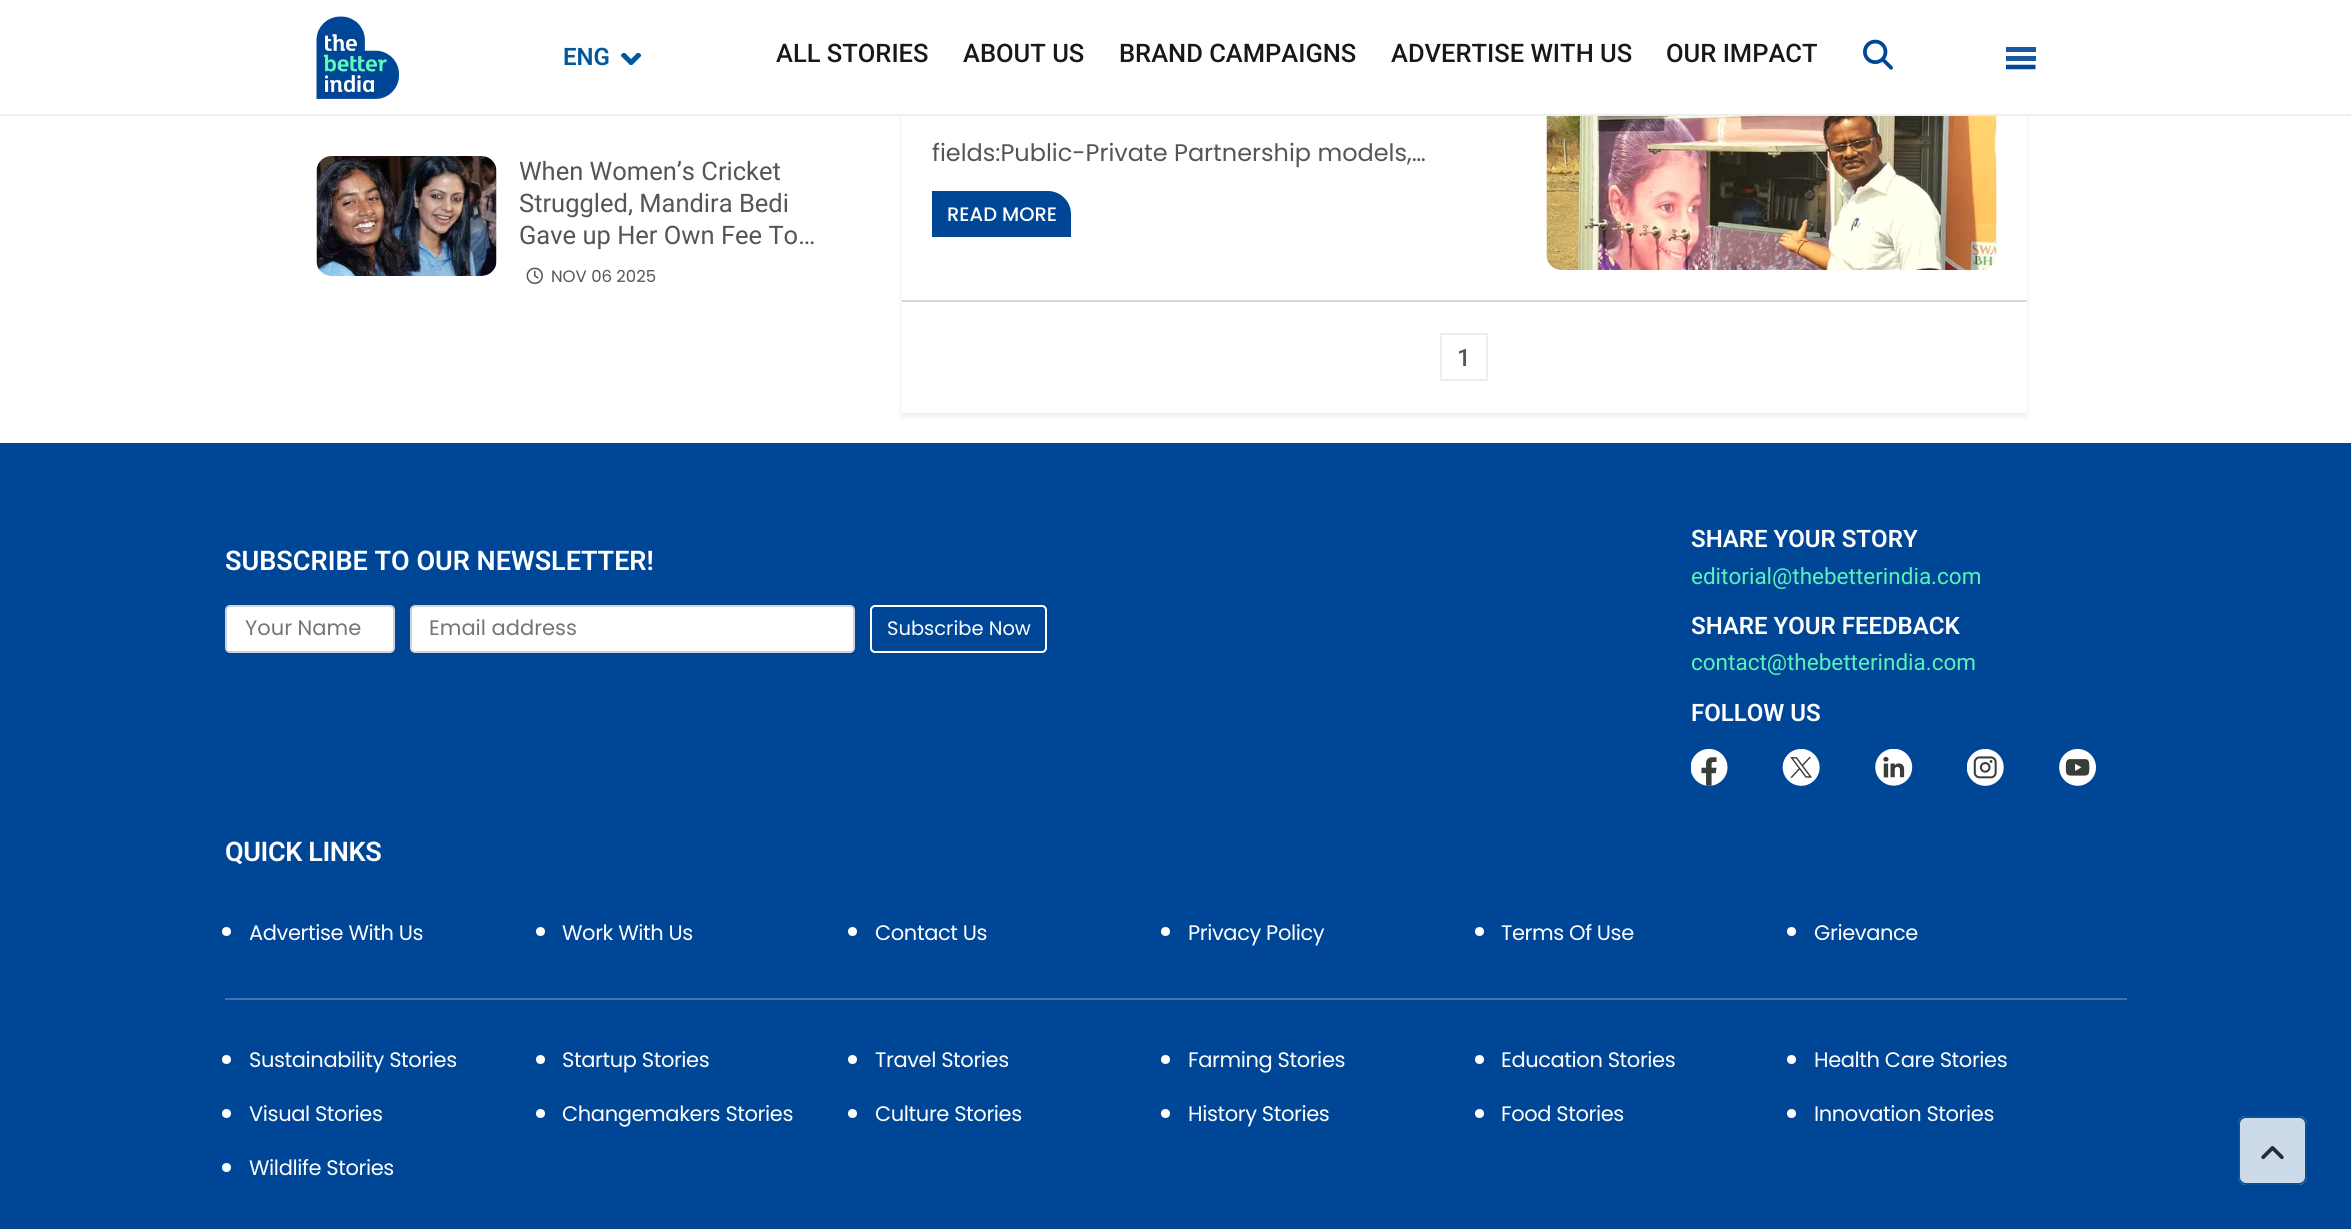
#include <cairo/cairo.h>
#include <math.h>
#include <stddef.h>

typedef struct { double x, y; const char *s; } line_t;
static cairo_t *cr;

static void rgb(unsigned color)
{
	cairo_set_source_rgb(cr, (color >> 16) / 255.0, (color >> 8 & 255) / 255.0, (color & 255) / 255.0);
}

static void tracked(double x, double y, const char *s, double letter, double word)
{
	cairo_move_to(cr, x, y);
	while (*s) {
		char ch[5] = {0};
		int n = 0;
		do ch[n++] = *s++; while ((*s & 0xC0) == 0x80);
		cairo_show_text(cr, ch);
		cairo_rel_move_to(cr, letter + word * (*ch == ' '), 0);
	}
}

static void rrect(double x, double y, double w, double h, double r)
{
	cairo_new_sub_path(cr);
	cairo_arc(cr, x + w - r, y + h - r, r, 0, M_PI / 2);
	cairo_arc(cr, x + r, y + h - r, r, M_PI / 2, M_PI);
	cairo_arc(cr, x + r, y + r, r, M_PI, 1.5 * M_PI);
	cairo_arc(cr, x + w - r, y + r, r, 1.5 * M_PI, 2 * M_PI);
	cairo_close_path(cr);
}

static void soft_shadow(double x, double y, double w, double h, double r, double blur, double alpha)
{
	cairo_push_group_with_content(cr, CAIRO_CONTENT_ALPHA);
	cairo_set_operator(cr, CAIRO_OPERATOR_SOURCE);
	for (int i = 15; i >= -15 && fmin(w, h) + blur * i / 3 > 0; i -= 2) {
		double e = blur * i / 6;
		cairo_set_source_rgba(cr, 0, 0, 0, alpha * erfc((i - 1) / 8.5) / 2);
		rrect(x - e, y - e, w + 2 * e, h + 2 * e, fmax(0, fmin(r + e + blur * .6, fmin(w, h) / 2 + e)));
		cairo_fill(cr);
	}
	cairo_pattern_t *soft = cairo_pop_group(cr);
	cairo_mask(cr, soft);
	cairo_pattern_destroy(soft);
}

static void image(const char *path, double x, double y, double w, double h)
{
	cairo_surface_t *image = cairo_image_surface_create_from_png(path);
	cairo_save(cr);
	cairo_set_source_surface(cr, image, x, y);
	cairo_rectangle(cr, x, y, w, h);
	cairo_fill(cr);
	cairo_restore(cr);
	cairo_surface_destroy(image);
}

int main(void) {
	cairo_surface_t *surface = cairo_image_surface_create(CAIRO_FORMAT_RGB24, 2351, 1229);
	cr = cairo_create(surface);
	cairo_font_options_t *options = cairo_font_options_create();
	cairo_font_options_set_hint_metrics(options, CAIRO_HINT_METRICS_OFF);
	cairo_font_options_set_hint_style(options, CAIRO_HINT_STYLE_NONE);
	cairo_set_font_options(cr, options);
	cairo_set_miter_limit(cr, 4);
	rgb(0xffffff);
	cairo_paint(cr);
	cairo_save(cr);
	cairo_set_fill_rule(cr, CAIRO_FILL_RULE_EVEN_ODD);
	cairo_new_path(cr);
	cairo_move_to(cr, 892, 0);
	cairo_line_to(cr, 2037, 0);
	cairo_line_to(cr, 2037, 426);
	cairo_line_to(cr, 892, 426);
	cairo_close_path(cr);
	cairo_move_to(cr, 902, -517);
	cairo_line_to(cr, 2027, -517);
	cairo_line_to(cr, 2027, 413);
	cairo_line_to(cr, 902, 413);
	cairo_close_path(cr);
	cairo_clip(cr);
	rgb(0x000000);
	soft_shadow(902, -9, 1125, 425, 0, 3, 0.08);
	cairo_restore(cr);
	rgb(0xffffff);
	cairo_rectangle(cr, 899, 0, 1131, 114);
	cairo_fill(cr);
	rgb(0xeeeeee);
	cairo_rectangle(cr, 0, 114, 2351, 2);
	cairo_fill(cr);
	image("img/1.png", 316, 16, 83, 83);
	image("img/2.png", 621, 53, 21, 12);
	image("img/3.png", 1863, 39, 30, 31);
	rgb(0x1a59a1);
	cairo_rectangle(cr, 2006, 47, 30, 5);
	cairo_fill(cr);
	cairo_rectangle(cr, 2006, 56, 30, 5);
	cairo_fill(cr);
	cairo_save(cr);
	cairo_rectangle(cr, 2006, 44, 30, 30);
	cairo_clip(cr);
	cairo_new_path(cr);
	cairo_move_to(cr, 2005.5, 67);
	cairo_line_to(cr, 2035.5, 67);
	rgb(0x004697);
	cairo_set_line_width(cr, 4.5);
	cairo_stroke(cr);
	cairo_restore(cr);
	image("img/4.png", 316, 156, 181, 120);
	image("img/5.png", 526, 267, 17, 18);
	cairo_set_source_rgba(cr, 0, 0, 0, 0.16);
	cairo_rectangle(cr, 902, 300, 1125, 2);
	cairo_fill(cr);
	image("img/6.png", 1546, 116, 451, 154);
	rgb(0x004697);
	cairo_new_path(cr);
	cairo_move_to(cr, 932, 191);
	cairo_line_to(cr, 1048, 191);
	cairo_curve_to(cr, 1060.5, 191, 1071, 201.5, 1071, 214);
	cairo_line_to(cr, 1071, 237);
	cairo_line_to(cr, 932, 237);
	cairo_close_path(cr);
	cairo_fill(cr);
	cairo_rectangle(cr, 1441, 334, 46, 46);
	rgb(0xeeeeee);
	cairo_stroke(cr);
	rgb(0x004697);
	cairo_rectangle(cr, 0, 443, 2351, 786);
	cairo_fill(cr);
	rgb(0xffffff);
	rrect(226, 606, 168, 46, 4);
	cairo_fill_preserve(cr);
	rgb(0xd3d3d3);
	cairo_stroke(cr);
	rgb(0xffffff);
	rrect(411, 606, 443, 46, 4);
	cairo_fill_preserve(cr);
	rgb(0xd3d3d3);
	cairo_stroke(cr);
	rrect(871, 606, 175, 46, 4);
	rgb(0xffffff);
	cairo_stroke(cr);
	image("img/7.png", 1691, 749, 37, 37);
	image("img/8.png", 1782, 749, 38, 37);
	image("img/9.png", 1875, 749, 38, 37);
	image("img/10.png", 1967, 749, 37, 37);
	image("img/11.png", 2059, 749, 37, 37);
	cairo_arc(cr, 226.5, 931.5, 4.5, 0, 2 * M_PI);
	cairo_fill(cr);
	cairo_arc(cr, 540.5, 931.5, 4.5, 0, 2 * M_PI);
	cairo_fill(cr);
	cairo_arc(cr, 852.5, 931.5, 4.5, 0, 2 * M_PI);
	cairo_fill(cr);
	cairo_arc(cr, 1165.5, 931.5, 4.5, 0, 2 * M_PI);
	cairo_fill(cr);
	cairo_arc(cr, 1479.5, 931.5, 4.5, 0, 2 * M_PI);
	cairo_fill(cr);
	cairo_arc(cr, 1791.5, 931.5, 4.5, 0, 2 * M_PI);
	cairo_fill(cr);
	rgb(0x4074b1);
	cairo_rectangle(cr, 225, 998, 1902, 2);
	cairo_fill(cr);
	rgb(0xffffff);
	cairo_arc(cr, 226.5, 1059.5, 4.5, 0, 2 * M_PI);
	cairo_fill(cr);
	cairo_arc(cr, 540.5, 1059.5, 4.5, 0, 2 * M_PI);
	cairo_fill(cr);
	cairo_arc(cr, 852.5, 1059.5, 4.5, 0, 2 * M_PI);
	cairo_fill(cr);
	cairo_arc(cr, 1165.5, 1059.5, 4.5, 0, 2 * M_PI);
	cairo_fill(cr);
	cairo_arc(cr, 1479.5, 1059.5, 4.5, 0, 2 * M_PI);
	cairo_fill(cr);
	cairo_arc(cr, 1791.5, 1059.5, 4.5, 0, 2 * M_PI);
	cairo_fill(cr);
	cairo_arc(cr, 226.5, 1113.5, 4.5, 0, 2 * M_PI);
	cairo_fill(cr);
	cairo_arc(cr, 540.5, 1113.5, 4.5, 0, 2 * M_PI);
	cairo_fill(cr);
	cairo_arc(cr, 852.5, 1113.5, 4.5, 0, 2 * M_PI);
	cairo_fill(cr);
	cairo_arc(cr, 1165.5, 1113.5, 4.5, 0, 2 * M_PI);
	cairo_fill(cr);
	cairo_arc(cr, 1479.5, 1113.5, 4.5, 0, 2 * M_PI);
	cairo_fill(cr);
	cairo_arc(cr, 1791.5, 1113.5, 4.5, 0, 2 * M_PI);
	cairo_fill(cr);
	cairo_arc(cr, 226.5, 1167.5, 4.5, 0, 2 * M_PI);
	cairo_fill(cr);
	rgb(0x000e1e);
	soft_shadow(2238, 1119, 69, 69, 8, 4.5, 0.1);
	rgb(0xccdaea);
	rrect(2238, 1116, 69, 69, 8);
	cairo_fill(cr);
	rrect(2241, 1119, 64, 64, 5);
	cairo_stroke(cr);
	rrect(2239, 1117, 67, 67, 7);
	rgb(0x01549a);
	cairo_stroke(cr);
	image("img/12.png", 2261, 1146, 23, 14);
	cairo_select_font_face(cr, "Roboto SemiBold", CAIRO_FONT_SLANT_NORMAL, CAIRO_FONT_WEIGHT_NORMAL);
	cairo_set_font_size(cr, 24);
	rgb(0x01579b);
	cairo_move_to(cr, 563, 65);
	cairo_show_text(cr, "ENG");
	cairo_select_font_face(cr, "Roboto Medium", CAIRO_FONT_SLANT_NORMAL, CAIRO_FONT_WEIGHT_NORMAL);
	cairo_set_font_size(cr, 25.5);
	rgb(0x181818);
	{
		static const line_t items[] = {
			{776, 62, "ALL STORIES"},
			{963, 62, "ABOUT US"},
			{1119, 62, "BRAND CAMPAIGNS"},
			{1391, 62, "ADVERTISE WITH US"},
			{1666, 62, "OUR IMPACT"},
		};
		for (size_t i = 0; i < sizeof items / sizeof *items; i++) {
			cairo_move_to(cr, items[i].x, items[i].y);
			cairo_show_text(cr, items[i].s);
		}
	}
	cairo_select_font_face(cr, "Roboto", CAIRO_FONT_SLANT_NORMAL, CAIRO_FONT_WEIGHT_NORMAL);
	rgb(0x555555);
	{
		static const line_t items[] = {
			{519, 180, "When Women’s Cricket"},
			{519, 212, "Struggled, Mandira Bedi"},
			{519, 244, "Gave up Her Own Fee To…"},
		};
		for (size_t i = 0; i < sizeof items / sizeof *items; i++) {
			cairo_move_to(cr, items[i].x, items[i].y);
			cairo_show_text(cr, items[i].s);
		}
	}
	cairo_select_font_face(cr, "Poppins", CAIRO_FONT_SLANT_NORMAL, CAIRO_FONT_WEIGHT_NORMAL);
	cairo_set_font_size(cr, 16.5);
	cairo_move_to(cr, 551, 282);
	cairo_show_text(cr, "NOV 06 2025");
	cairo_set_font_size(cr, 24);
	cairo_move_to(cr, 932, 161);
	cairo_show_text(cr, "fields:Public-Private Partnership models,…");
	cairo_select_font_face(cr, "Poppins Medium", CAIRO_FONT_SLANT_NORMAL, CAIRO_FONT_WEIGHT_NORMAL);
	cairo_set_font_size(cr, 19.5);
	rgb(0xffffff);
	cairo_move_to(cr, 947, 221);
	cairo_show_text(cr, "READ MORE");
	cairo_select_font_face(cr, "Roboto Medium", CAIRO_FONT_SLANT_NORMAL, CAIRO_FONT_WEIGHT_NORMAL);
	cairo_set_font_size(cr, 24);
	rgb(0x555555);
	cairo_move_to(cr, 1457, 366);
	cairo_show_text(cr, "1");
	cairo_select_font_face(cr, "Roboto SemiBold", CAIRO_FONT_SLANT_NORMAL, CAIRO_FONT_WEIGHT_NORMAL);
	cairo_set_font_size(cr, 27);
	rgb(0xffffff);
	cairo_move_to(cr, 225, 570);
	cairo_show_text(cr, "SUBSCRIBE TO OUR NEWSLETTER!");
	cairo_select_font_face(cr, "Poppins", CAIRO_FONT_SLANT_NORMAL, CAIRO_FONT_WEIGHT_NORMAL);
	cairo_set_font_size(cr, 21);
	rgb(0x757575);
	cairo_move_to(cr, 245, 635);
	cairo_show_text(cr, "Your Name");
	cairo_move_to(cr, 429, 635);
	cairo_show_text(cr, "Email address");
	cairo_set_font_size(cr, 19.5);
	rgb(0xffffff);
	cairo_move_to(cr, 887, 635);
	cairo_show_text(cr, "Subscribe Now");
	cairo_select_font_face(cr, "Roboto SemiBold", CAIRO_FONT_SLANT_NORMAL, CAIRO_FONT_WEIGHT_NORMAL);
	cairo_set_font_size(cr, 24);
	cairo_move_to(cr, 1691, 547);
	cairo_show_text(cr, "SHARE YOUR STORY");
	cairo_select_font_face(cr, "Roboto", CAIRO_FONT_SLANT_NORMAL, CAIRO_FONT_WEIGHT_NORMAL);
	cairo_set_font_size(cr, 22.5);
	rgb(0x59f3b9);
	cairo_move_to(cr, 1691, 584);
	cairo_show_text(cr, "editorial@thebetterindia.com");
	cairo_select_font_face(cr, "Roboto SemiBold", CAIRO_FONT_SLANT_NORMAL, CAIRO_FONT_WEIGHT_NORMAL);
	cairo_set_font_size(cr, 24);
	rgb(0xffffff);
	cairo_move_to(cr, 1691, 634);
	cairo_show_text(cr, "SHARE YOUR FEEDBACK");
	cairo_select_font_face(cr, "Roboto", CAIRO_FONT_SLANT_NORMAL, CAIRO_FONT_WEIGHT_NORMAL);
	cairo_set_font_size(cr, 22.5);
	rgb(0x59f3b9);
	cairo_move_to(cr, 1691, 670);
	cairo_show_text(cr, "contact@thebetterindia.com");
	cairo_select_font_face(cr, "Roboto SemiBold", CAIRO_FONT_SLANT_NORMAL, CAIRO_FONT_WEIGHT_NORMAL);
	cairo_set_font_size(cr, 24);
	rgb(0xffffff);
	cairo_move_to(cr, 1691, 721);
	cairo_show_text(cr, "FOLLOW US");
	cairo_set_font_size(cr, 27);
	tracked(225, 861, "QUICK LINKS", -0.4, 0);
	cairo_select_font_face(cr, "Poppins", CAIRO_FONT_SLANT_NORMAL, CAIRO_FONT_WEIGHT_NORMAL);
	cairo_set_font_size(cr, 21);
	{
		static const line_t items[] = {
			{249, 940, "Advertise With Us"},
			{562, 940, "Work With Us"},
			{875, 940, "Contact Us"},
			{1188, 940, "Privacy Policy"},
			{1501, 940, "Terms Of Use"},
			{1814, 940, "Grievance"},
			{249, 1067, "Sustainability Stories"},
			{562, 1067, "Startup Stories"},
			{875, 1067, "Travel Stories"},
			{1188, 1067, "Farming Stories"},
			{1501, 1067, "Education Stories"},
			{1814, 1067, "Health Care Stories"},
			{249, 1121, "Visual Stories"},
			{562, 1121, "Changemakers Stories"},
			{875, 1121, "Culture Stories"},
			{1188, 1121, "History Stories"},
			{1501, 1121, "Food Stories"},
			{1814, 1121, "Innovation Stories"},
			{249, 1175, "Wildlife Stories"},
		};
		for (size_t i = 0; i < sizeof items / sizeof *items; i++) {
			tracked(items[i].x, items[i].y, items[i].s, -0.4, 0);
		}
	}
	cairo_surface_write_to_png(surface, "page.png");
	cairo_font_options_destroy(options);
	cairo_destroy(cr);
	cairo_surface_destroy(surface);
	return 0;
}
